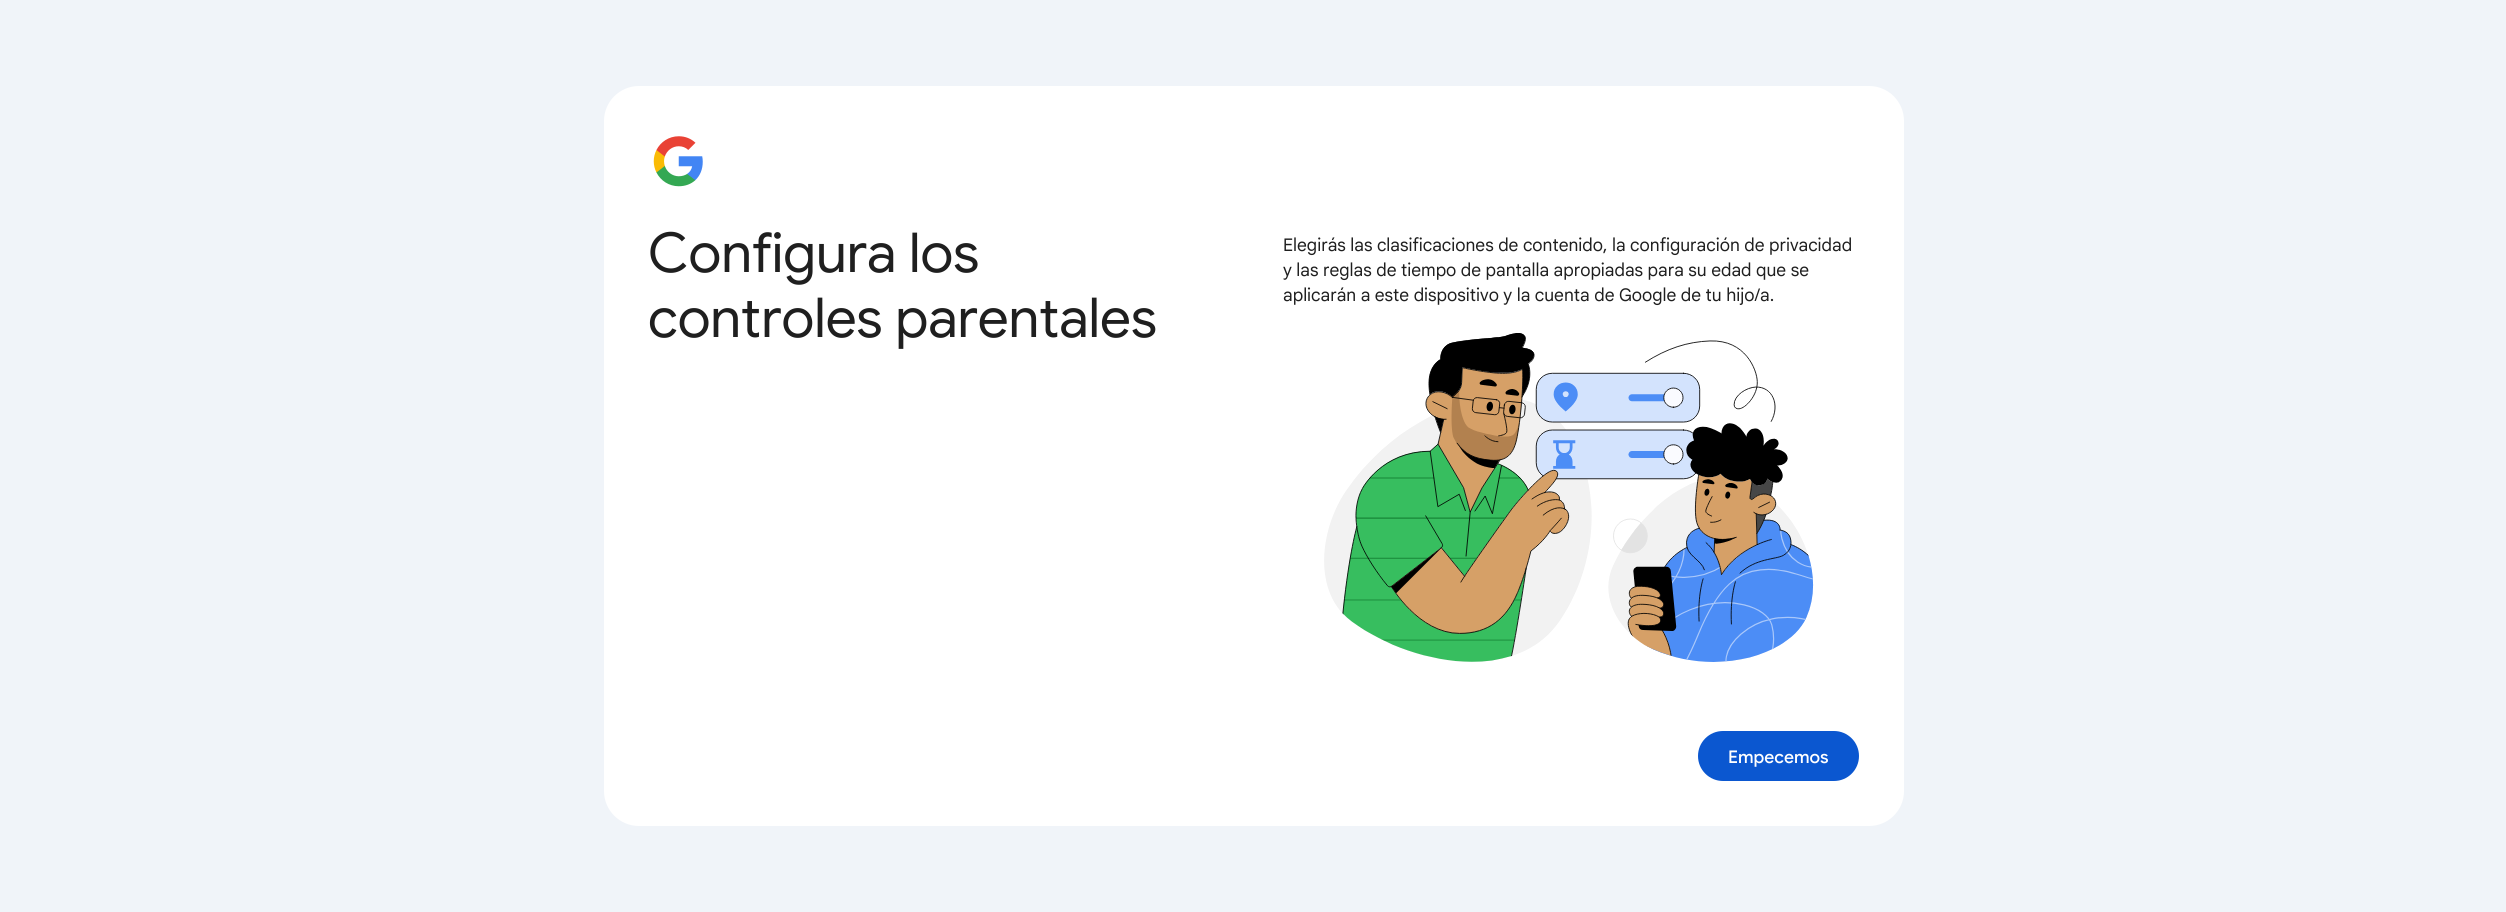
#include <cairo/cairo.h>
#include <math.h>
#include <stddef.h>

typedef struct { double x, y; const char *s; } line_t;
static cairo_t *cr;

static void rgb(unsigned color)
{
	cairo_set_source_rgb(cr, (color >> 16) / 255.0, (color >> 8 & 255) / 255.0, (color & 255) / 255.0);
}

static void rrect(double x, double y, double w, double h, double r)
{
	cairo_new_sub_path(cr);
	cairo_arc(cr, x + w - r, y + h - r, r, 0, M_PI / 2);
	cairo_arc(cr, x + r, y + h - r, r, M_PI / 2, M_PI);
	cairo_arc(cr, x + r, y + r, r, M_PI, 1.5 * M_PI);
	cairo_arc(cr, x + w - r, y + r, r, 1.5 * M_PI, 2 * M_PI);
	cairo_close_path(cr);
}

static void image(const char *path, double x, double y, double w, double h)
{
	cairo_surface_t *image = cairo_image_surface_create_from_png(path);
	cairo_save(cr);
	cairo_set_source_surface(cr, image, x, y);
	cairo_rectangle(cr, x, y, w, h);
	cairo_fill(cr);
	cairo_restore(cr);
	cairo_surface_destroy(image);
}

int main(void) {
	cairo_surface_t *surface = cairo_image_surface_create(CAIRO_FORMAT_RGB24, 2506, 912);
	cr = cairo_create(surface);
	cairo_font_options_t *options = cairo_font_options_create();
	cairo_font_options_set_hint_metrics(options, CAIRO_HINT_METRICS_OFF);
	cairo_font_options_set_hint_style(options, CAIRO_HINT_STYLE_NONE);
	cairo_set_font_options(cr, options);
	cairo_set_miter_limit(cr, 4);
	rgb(0xf0f4f9);
	cairo_paint(cr);
	rgb(0xffffff);
	rrect(604, 86, 1300, 740, 35);
	cairo_fill(cr);
	image("img/1.png", 653, 136, 50, 51);
	image("img/2.png", 1324, 333, 490, 329);
	rgb(0x0b57d0);
	rrect(1698, 731, 161, 50, 25);
	cairo_fill(cr);
	cairo_select_font_face(cr, "Google Sans", CAIRO_FONT_SLANT_NORMAL, CAIRO_FONT_WEIGHT_NORMAL);
	cairo_set_font_size(cr, 55);
	rgb(0x1f1f1f);
	cairo_move_to(cr, 648, 272);
	cairo_show_text(cr, "Configura los");
	cairo_move_to(cr, 648, 337);
	cairo_show_text(cr, "controles parentales");
	cairo_select_font_face(cr, "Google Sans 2", CAIRO_FONT_SLANT_NORMAL, CAIRO_FONT_WEIGHT_NORMAL);
	cairo_set_font_size(cr, 17.5);
	{
		static const line_t items[] = {
			{1283, 251, "Elegirás las clasificaciones de contenido, la configuración de privacidad"},
			{1283, 276, "y las reglas de tiempo de pantalla apropiadas para su edad que se"},
			{1283, 301, "aplicarán a este dispositivo y la cuenta de Google de tu hijo/a."},
		};
		for (size_t i = 0; i < sizeof items / sizeof *items; i++) {
			cairo_move_to(cr, items[i].x, items[i].y);
			cairo_show_text(cr, items[i].s);
		}
	}
	cairo_select_font_face(cr, "Google Sans Medium", CAIRO_FONT_SLANT_NORMAL, CAIRO_FONT_WEIGHT_NORMAL);
	rgb(0xffffff);
	cairo_move_to(cr, 1728, 763);
	cairo_show_text(cr, "Empecemos");
	cairo_surface_write_to_png(surface, "page.png");
	cairo_font_options_destroy(options);
	cairo_destroy(cr);
	cairo_surface_destroy(surface);
	return 0;
}
